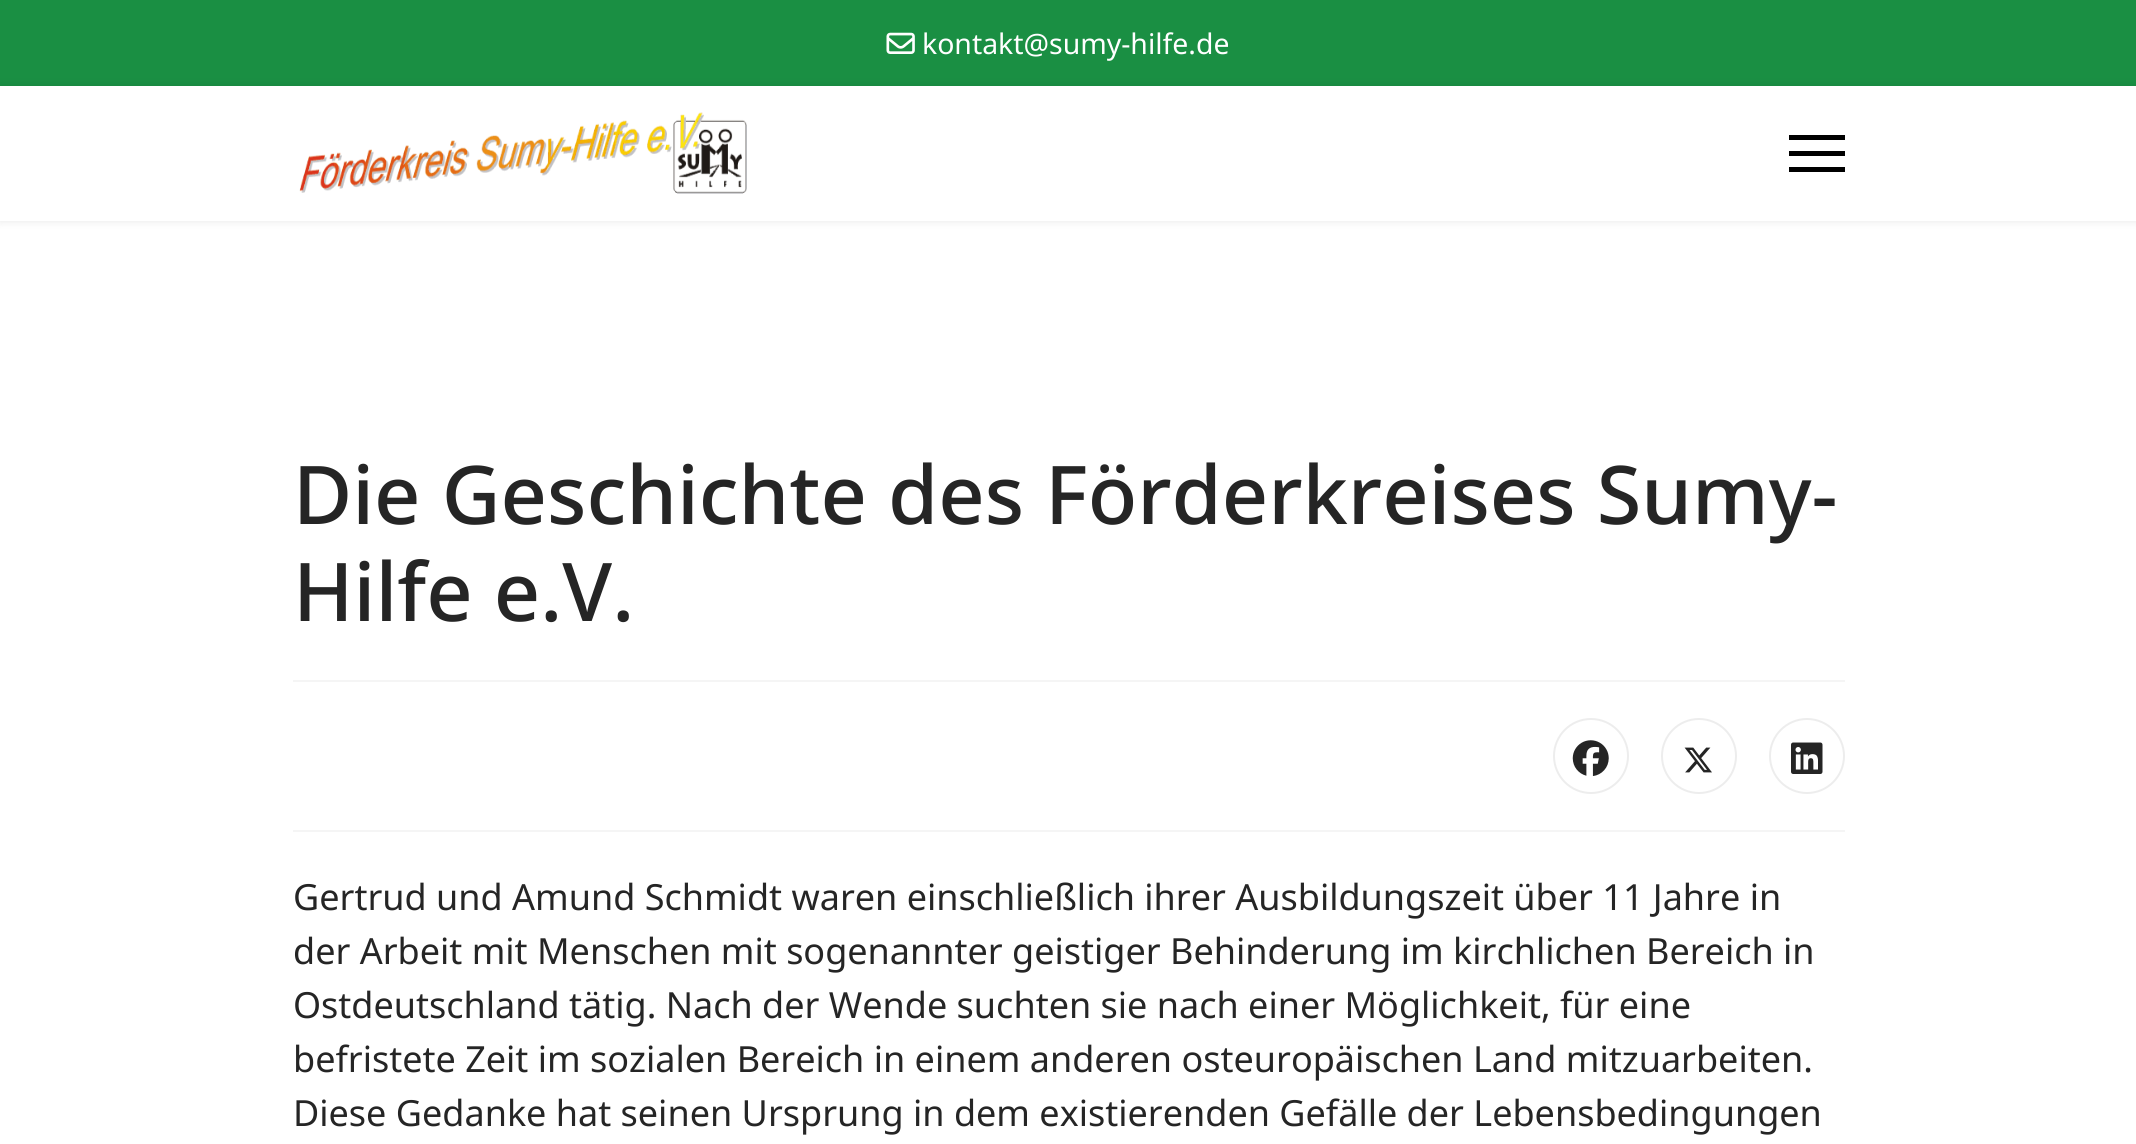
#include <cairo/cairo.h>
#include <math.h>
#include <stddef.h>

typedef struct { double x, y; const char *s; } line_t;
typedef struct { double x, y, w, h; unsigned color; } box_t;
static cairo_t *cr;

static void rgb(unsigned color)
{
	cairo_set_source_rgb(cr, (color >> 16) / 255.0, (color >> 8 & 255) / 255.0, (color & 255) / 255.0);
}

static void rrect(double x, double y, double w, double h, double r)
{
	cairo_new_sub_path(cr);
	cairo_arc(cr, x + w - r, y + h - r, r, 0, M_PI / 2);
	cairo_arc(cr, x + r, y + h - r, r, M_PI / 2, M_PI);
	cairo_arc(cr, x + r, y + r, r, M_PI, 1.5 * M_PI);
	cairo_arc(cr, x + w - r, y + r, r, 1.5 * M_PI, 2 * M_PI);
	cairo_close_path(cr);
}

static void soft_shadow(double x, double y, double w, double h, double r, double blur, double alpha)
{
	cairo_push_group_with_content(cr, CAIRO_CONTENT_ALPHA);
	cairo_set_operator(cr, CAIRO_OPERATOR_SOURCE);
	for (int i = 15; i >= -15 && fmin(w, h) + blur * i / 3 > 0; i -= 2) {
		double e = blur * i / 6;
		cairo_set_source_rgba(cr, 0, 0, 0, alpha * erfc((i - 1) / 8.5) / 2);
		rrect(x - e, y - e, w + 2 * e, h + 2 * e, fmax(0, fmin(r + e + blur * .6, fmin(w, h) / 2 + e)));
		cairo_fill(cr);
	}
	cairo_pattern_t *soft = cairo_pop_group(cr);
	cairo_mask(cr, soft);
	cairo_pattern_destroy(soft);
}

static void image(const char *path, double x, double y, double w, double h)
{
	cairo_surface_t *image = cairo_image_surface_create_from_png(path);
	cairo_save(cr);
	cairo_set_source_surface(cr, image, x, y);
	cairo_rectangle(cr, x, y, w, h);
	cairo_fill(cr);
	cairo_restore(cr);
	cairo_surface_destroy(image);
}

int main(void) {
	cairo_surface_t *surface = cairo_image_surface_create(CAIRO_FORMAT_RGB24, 2136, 1144);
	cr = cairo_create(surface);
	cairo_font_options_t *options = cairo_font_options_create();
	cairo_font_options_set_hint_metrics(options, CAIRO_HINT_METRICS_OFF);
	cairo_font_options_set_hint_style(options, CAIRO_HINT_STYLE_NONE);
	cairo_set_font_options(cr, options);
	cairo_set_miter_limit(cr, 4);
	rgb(0xffffff);
	cairo_paint(cr);
	rgb(0x1a8f43);
	cairo_rectangle(cr, 0, 0, 2136, 86);
	cairo_fill(cr);
	image("img/1.png", 886, 32, 29, 22);
	rgb(0x000000);
	soft_shadow(0, 86, 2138, 135, 0, 4.5, 0.1);
	rgb(0xffffff);
	cairo_rectangle(cr, 0, 86, 2136, 135);
	cairo_fill(cr);
	image("img/2.png", 299, 112, 448, 82);
	{
		static const box_t items[] = {
			{1789, 135, 56, 5, 0x000000},
			{1789, 151, 56, 5, 0x000000},
			{1789, 167, 56, 5, 0x000000},
			{293, 680, 1552, 2, 0xf5f5f5},
			{293, 830, 1552, 2, 0xf5f5f5},
		};
		for (size_t i = 0; i < sizeof items / sizeof *items; i++) {
			rgb(items[i].color);
			cairo_rectangle(cr, items[i].x, items[i].y, items[i].w, items[i].h);
			cairo_fill(cr);
		}
	}
	cairo_arc(cr, 1591, 756, 37, 0, 2 * M_PI);
	rgb(0xededed);
	cairo_stroke(cr);
	image("img/3.png", 1572, 740, 37, 36);
	cairo_arc(cr, 1699, 756, 37, 0, 2 * M_PI);
	cairo_stroke(cr);
	image("img/4.png", 1684, 747, 28, 26);
	cairo_arc(cr, 1807, 756, 37, 0, 2 * M_PI);
	cairo_stroke(cr);
	image("img/5.png", 1791, 742, 32, 32);
	cairo_select_font_face(cr, "Noto Sans", CAIRO_FONT_SLANT_NORMAL, CAIRO_FONT_WEIGHT_NORMAL);
	cairo_set_font_size(cr, 28.4);
	rgb(0xffffff);
	cairo_move_to(cr, 922, 54);
	cairo_show_text(cr, "kontakt@sumy-hilfe.de");
	cairo_select_font_face(cr, "Noto Sans Medium", CAIRO_FONT_SLANT_NORMAL, CAIRO_FONT_WEIGHT_NORMAL);
	cairo_set_font_size(cr, 81);
	rgb(0x252525);
	cairo_move_to(cr, 293, 524);
	cairo_show_text(cr, "Die Geschichte des Förderkreises Sumy-");
	cairo_move_to(cr, 293, 621);
	cairo_show_text(cr, "Hilfe e.V.");
	cairo_select_font_face(cr, "Noto Sans", CAIRO_FONT_SLANT_NORMAL, CAIRO_FONT_WEIGHT_NORMAL);
	cairo_set_font_size(cr, 36);
	{
		static const line_t items[] = {
			{293, 910, "Gertrud und Amund Schmidt waren einschließlich ihrer Ausbildungszeit über 11 Jahre in"},
			{293, 964, "der Arbeit mit Menschen mit sogenannter geistiger Behinderung im kirchlichen Bereich in"},
			{293, 1018, "Ostdeutschland tätig. Nach der Wende suchten sie nach einer Möglichkeit, für eine"},
			{293, 1072, "befristete Zeit im sozialen Bereich in einem anderen osteuropäischen Land mitzuarbeiten."},
			{293, 1126, "Diese Gedanke hat seinen Ursprung in dem existierenden Gefälle der Lebensbedingungen"},
		};
		for (size_t i = 0; i < sizeof items / sizeof *items; i++) {
			cairo_move_to(cr, items[i].x, items[i].y);
			cairo_show_text(cr, items[i].s);
		}
	}
	cairo_surface_write_to_png(surface, "page.png");
	cairo_font_options_destroy(options);
	cairo_destroy(cr);
	cairo_surface_destroy(surface);
	return 0;
}
